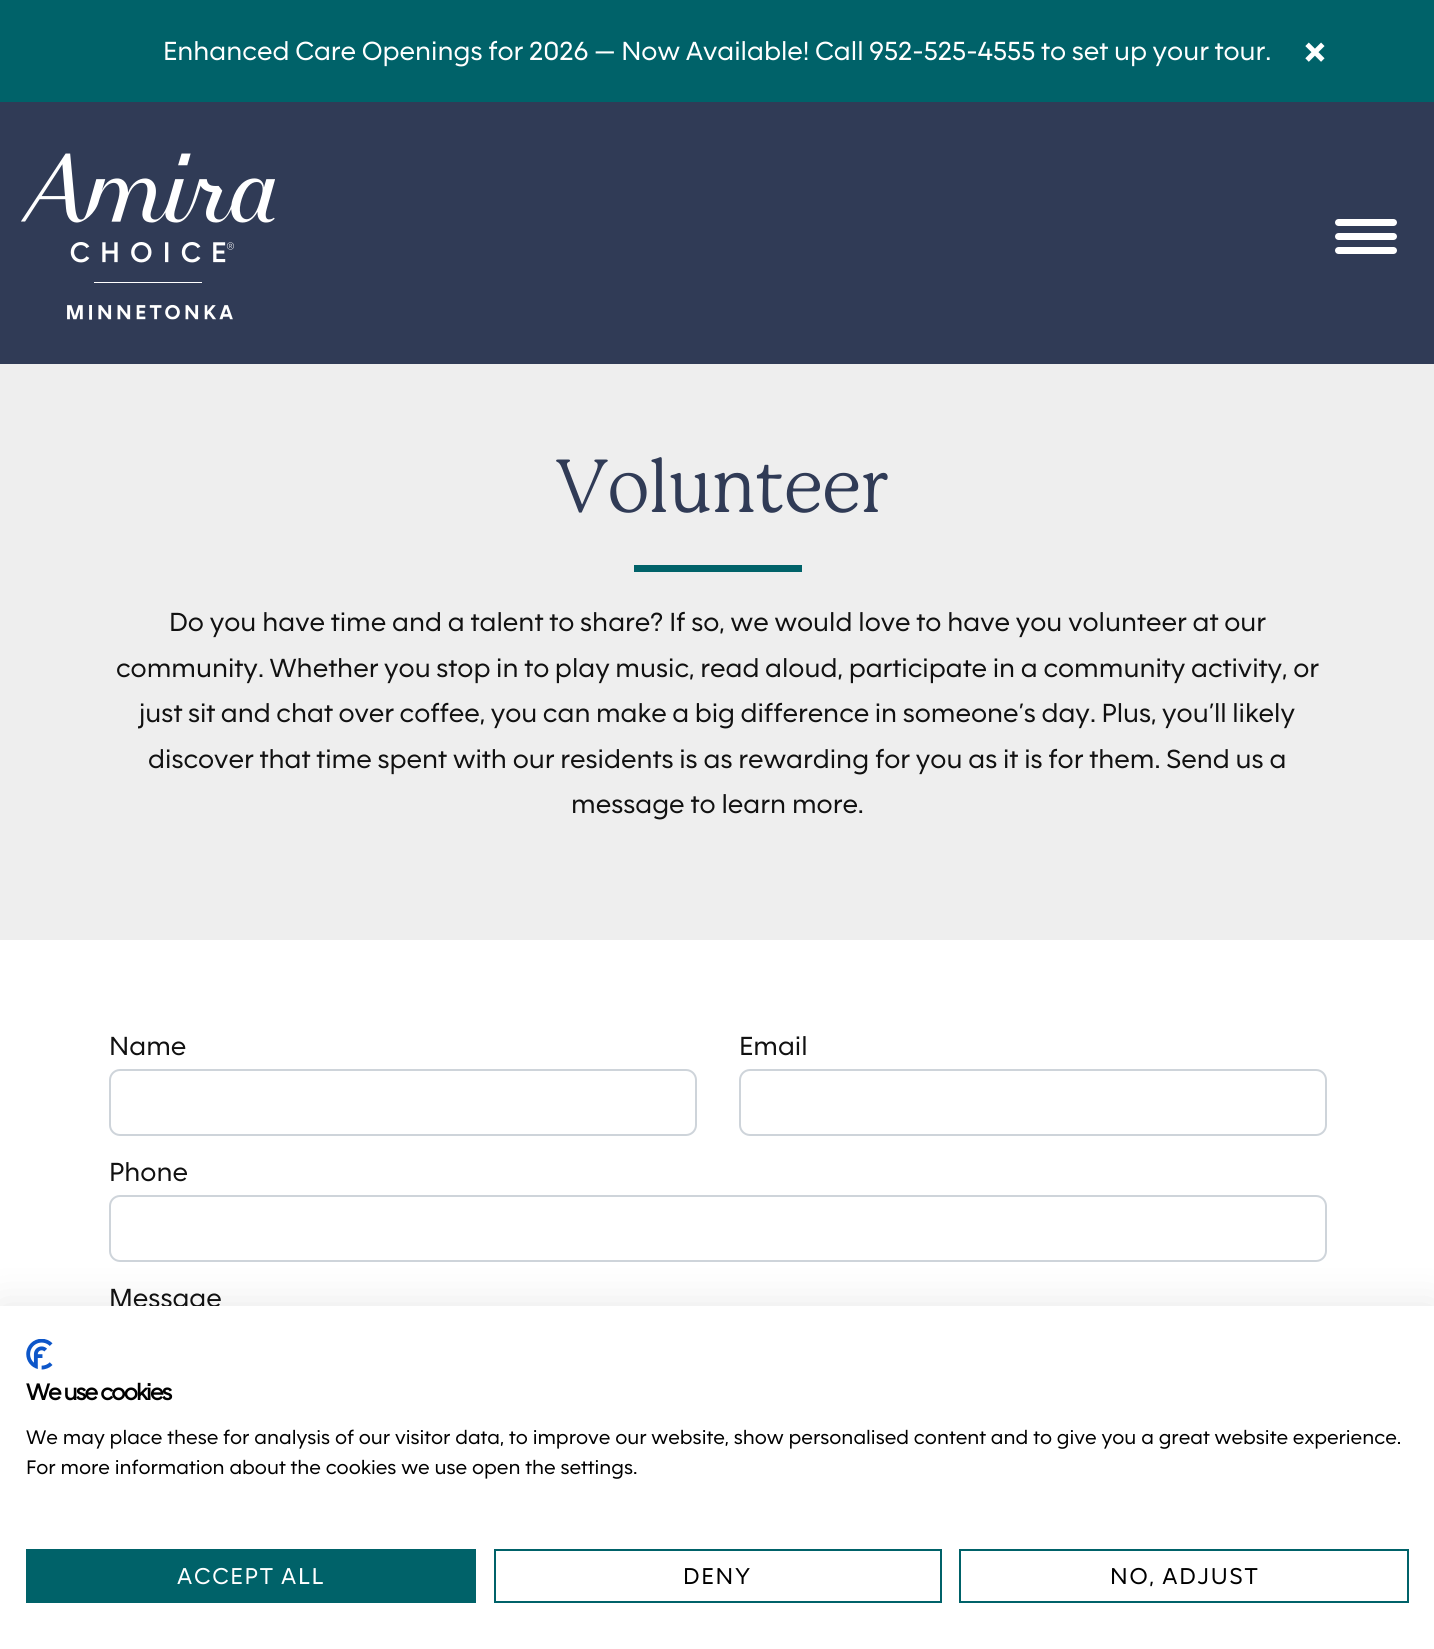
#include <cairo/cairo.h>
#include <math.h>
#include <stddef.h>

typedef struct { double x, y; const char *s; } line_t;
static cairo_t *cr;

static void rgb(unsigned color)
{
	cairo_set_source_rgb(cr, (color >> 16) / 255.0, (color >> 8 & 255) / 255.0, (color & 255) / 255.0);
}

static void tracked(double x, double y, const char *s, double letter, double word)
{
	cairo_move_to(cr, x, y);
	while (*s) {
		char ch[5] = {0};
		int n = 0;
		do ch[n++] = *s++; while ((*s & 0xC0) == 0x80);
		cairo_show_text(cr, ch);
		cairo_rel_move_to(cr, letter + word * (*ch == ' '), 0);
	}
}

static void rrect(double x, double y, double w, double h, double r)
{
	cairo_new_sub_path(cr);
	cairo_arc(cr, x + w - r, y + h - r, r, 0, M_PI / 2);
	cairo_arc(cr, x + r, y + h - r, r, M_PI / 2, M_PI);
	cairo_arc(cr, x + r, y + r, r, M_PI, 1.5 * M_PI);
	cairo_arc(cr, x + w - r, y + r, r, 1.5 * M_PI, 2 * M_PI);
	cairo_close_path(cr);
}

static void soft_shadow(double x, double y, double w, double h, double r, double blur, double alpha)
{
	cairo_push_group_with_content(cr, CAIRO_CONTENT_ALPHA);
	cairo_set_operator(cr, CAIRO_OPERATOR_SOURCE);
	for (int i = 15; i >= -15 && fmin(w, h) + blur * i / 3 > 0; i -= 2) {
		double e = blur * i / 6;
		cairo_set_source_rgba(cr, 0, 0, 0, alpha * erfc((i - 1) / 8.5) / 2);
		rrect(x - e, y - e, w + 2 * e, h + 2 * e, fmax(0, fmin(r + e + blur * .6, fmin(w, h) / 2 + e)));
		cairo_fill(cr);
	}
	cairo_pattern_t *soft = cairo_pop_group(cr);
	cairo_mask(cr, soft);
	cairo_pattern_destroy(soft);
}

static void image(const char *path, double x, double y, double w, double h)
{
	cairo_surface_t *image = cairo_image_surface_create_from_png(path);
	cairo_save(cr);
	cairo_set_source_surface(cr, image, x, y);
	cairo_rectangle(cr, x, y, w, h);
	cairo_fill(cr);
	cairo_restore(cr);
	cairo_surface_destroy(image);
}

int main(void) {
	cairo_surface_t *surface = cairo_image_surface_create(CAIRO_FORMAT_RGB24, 1434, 1649);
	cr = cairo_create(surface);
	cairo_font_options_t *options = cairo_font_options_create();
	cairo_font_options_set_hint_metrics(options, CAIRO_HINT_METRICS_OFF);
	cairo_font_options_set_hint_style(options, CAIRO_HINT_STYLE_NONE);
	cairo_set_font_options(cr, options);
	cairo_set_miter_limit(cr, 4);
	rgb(0xffffff);
	cairo_paint(cr);
	rgb(0x303b56);
	cairo_rectangle(cr, 0, 102, 1434, 262);
	cairo_fill(cr);
	rgb(0x006269);
	cairo_rectangle(cr, 0, 0, 1434, 102);
	cairo_fill(cr);
	image("img/1.png", 21, 153, 254, 167);
	rgb(0xffffff);
	rrect(1335, 219, 62, 7, 3.5);
	cairo_fill(cr);
	rrect(1335, 233, 62, 7, 3.5);
	cairo_fill(cr);
	rrect(1335, 247, 62, 7, 3.5);
	cairo_fill(cr);
	rgb(0xeeeeee);
	cairo_rectangle(cr, 0, 364, 1434, 576);
	cairo_fill(cr);
	rgb(0x006269);
	cairo_rectangle(cr, 634, 565, 168, 7);
	cairo_fill(cr);
	rrect(110, 1070, 586, 65, 10);
	rgb(0xced4da);
	cairo_stroke(cr);
	rrect(740, 1070, 586, 65, 10);
	cairo_stroke(cr);
	rrect(110, 1196, 1216, 65, 10);
	cairo_stroke(cr);
	rgb(0x000000);
	soft_shadow(0, 1306, 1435, 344, 0, 21, 0.1);
	cairo_select_font_face(cr, "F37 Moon", CAIRO_FONT_SLANT_NORMAL, CAIRO_FONT_WEIGHT_NORMAL);
	cairo_set_font_size(cr, 28);
	rgb(0xffffff);
	tracked(163, 60, "Enhanced Care Openings for 2026 — Now Available! Call 952-525-4555 to set up your tour.", 0, -0.75);
	cairo_select_font_face(cr, "F37 Moon", CAIRO_FONT_SLANT_NORMAL, CAIRO_FONT_WEIGHT_BOLD);
	cairo_set_font_size(cr, 42);
	tracked(1302, 65, "×", 1.75, 0);
	cairo_select_font_face(cr, "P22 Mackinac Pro", CAIRO_FONT_SLANT_NORMAL, CAIRO_FONT_WEIGHT_NORMAL);
	cairo_set_font_size(cr, 73.5);
	rgb(0x303b56);
	tracked(555, 512, "Volunteer", -1.75, 0);
	cairo_select_font_face(cr, "F37 Moon", CAIRO_FONT_SLANT_NORMAL, CAIRO_FONT_WEIGHT_NORMAL);
	cairo_set_font_size(cr, 28);
	rgb(0x111111);
	tracked(169, 631, "Do you have time and a talent to share? If so, we would love to have you volunteer at our", 0, -0.6);
	tracked(116, 677, "community. Whether you stop in to play music, read aloud, participate in a community activity, or", 0, -0.75);
	tracked(139, 722, "just sit and chat over coffee, you can make a big difference in someone’s day. Plus, you’ll likely", 0, -0.9);
	tracked(148, 768, "discover that time spent with our residents is as rewarding for you as it is for them. Send us a", 0, -0.6);
	tracked(571, 813, "message to learn more.", 0, -0.5);
	{
		static const line_t items[] = {
			{109, 1055, "Name"},
			{739, 1055, "Email"},
			{109, 1181, "Phone"},
			{109, 1307, "Message"},
		};
		for (size_t i = 0; i < sizeof items / sizeof *items; i++) {
			cairo_move_to(cr, items[i].x, items[i].y);
			cairo_show_text(cr, items[i].s);
		}
	}
	rgb(0xffffff);
	cairo_rectangle(cr, 0, 1306, 1434, 343);
	cairo_fill(cr);
	image("img/2.png", 26, 1339, 27, 31);
	cairo_select_font_face(cr, "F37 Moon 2", CAIRO_FONT_SLANT_NORMAL, CAIRO_FONT_WEIGHT_BOLD);
	cairo_set_font_size(cr, 24.5);
	rgb(0x000000);
	tracked(26, 1400, "We use cookies", -1.75, 0);
	cairo_select_font_face(cr, "F37 Moon", CAIRO_FONT_SLANT_NORMAL, CAIRO_FONT_WEIGHT_NORMAL);
	cairo_set_font_size(cr, 21);
	cairo_move_to(cr, 26, 1444);
	cairo_show_text(cr, "We may place these for analysis of our visitor data, to improve our website, show personalised content and to give you a great website experience.");
	cairo_move_to(cr, 26, 1474);
	cairo_show_text(cr, "For more information about the cookies we use open the settings.");
	rgb(0x006269);
	cairo_rectangle(cr, 26, 1549, 450, 54);
	cairo_fill(cr);
	cairo_set_font_size(cr, 24.5);
	rgb(0xffffff);
	tracked(177, 1584, "ACCEPT ALL", 1.75, -1);
	cairo_rectangle(cr, 495, 1550, 446, 52);
	rgb(0x006269);
	cairo_stroke(cr);
	rgb(0x000000);
	tracked(683, 1584, "DENY", 1.75, 0);
	cairo_rectangle(cr, 960, 1550, 448, 52);
	rgb(0x006269);
	cairo_stroke(cr);
	rgb(0x000000);
	tracked(1110, 1584, "NO, ADJUST", 1.75, -1);
	cairo_surface_write_to_png(surface, "page.png");
	cairo_font_options_destroy(options);
	cairo_destroy(cr);
	cairo_surface_destroy(surface);
	return 0;
}
